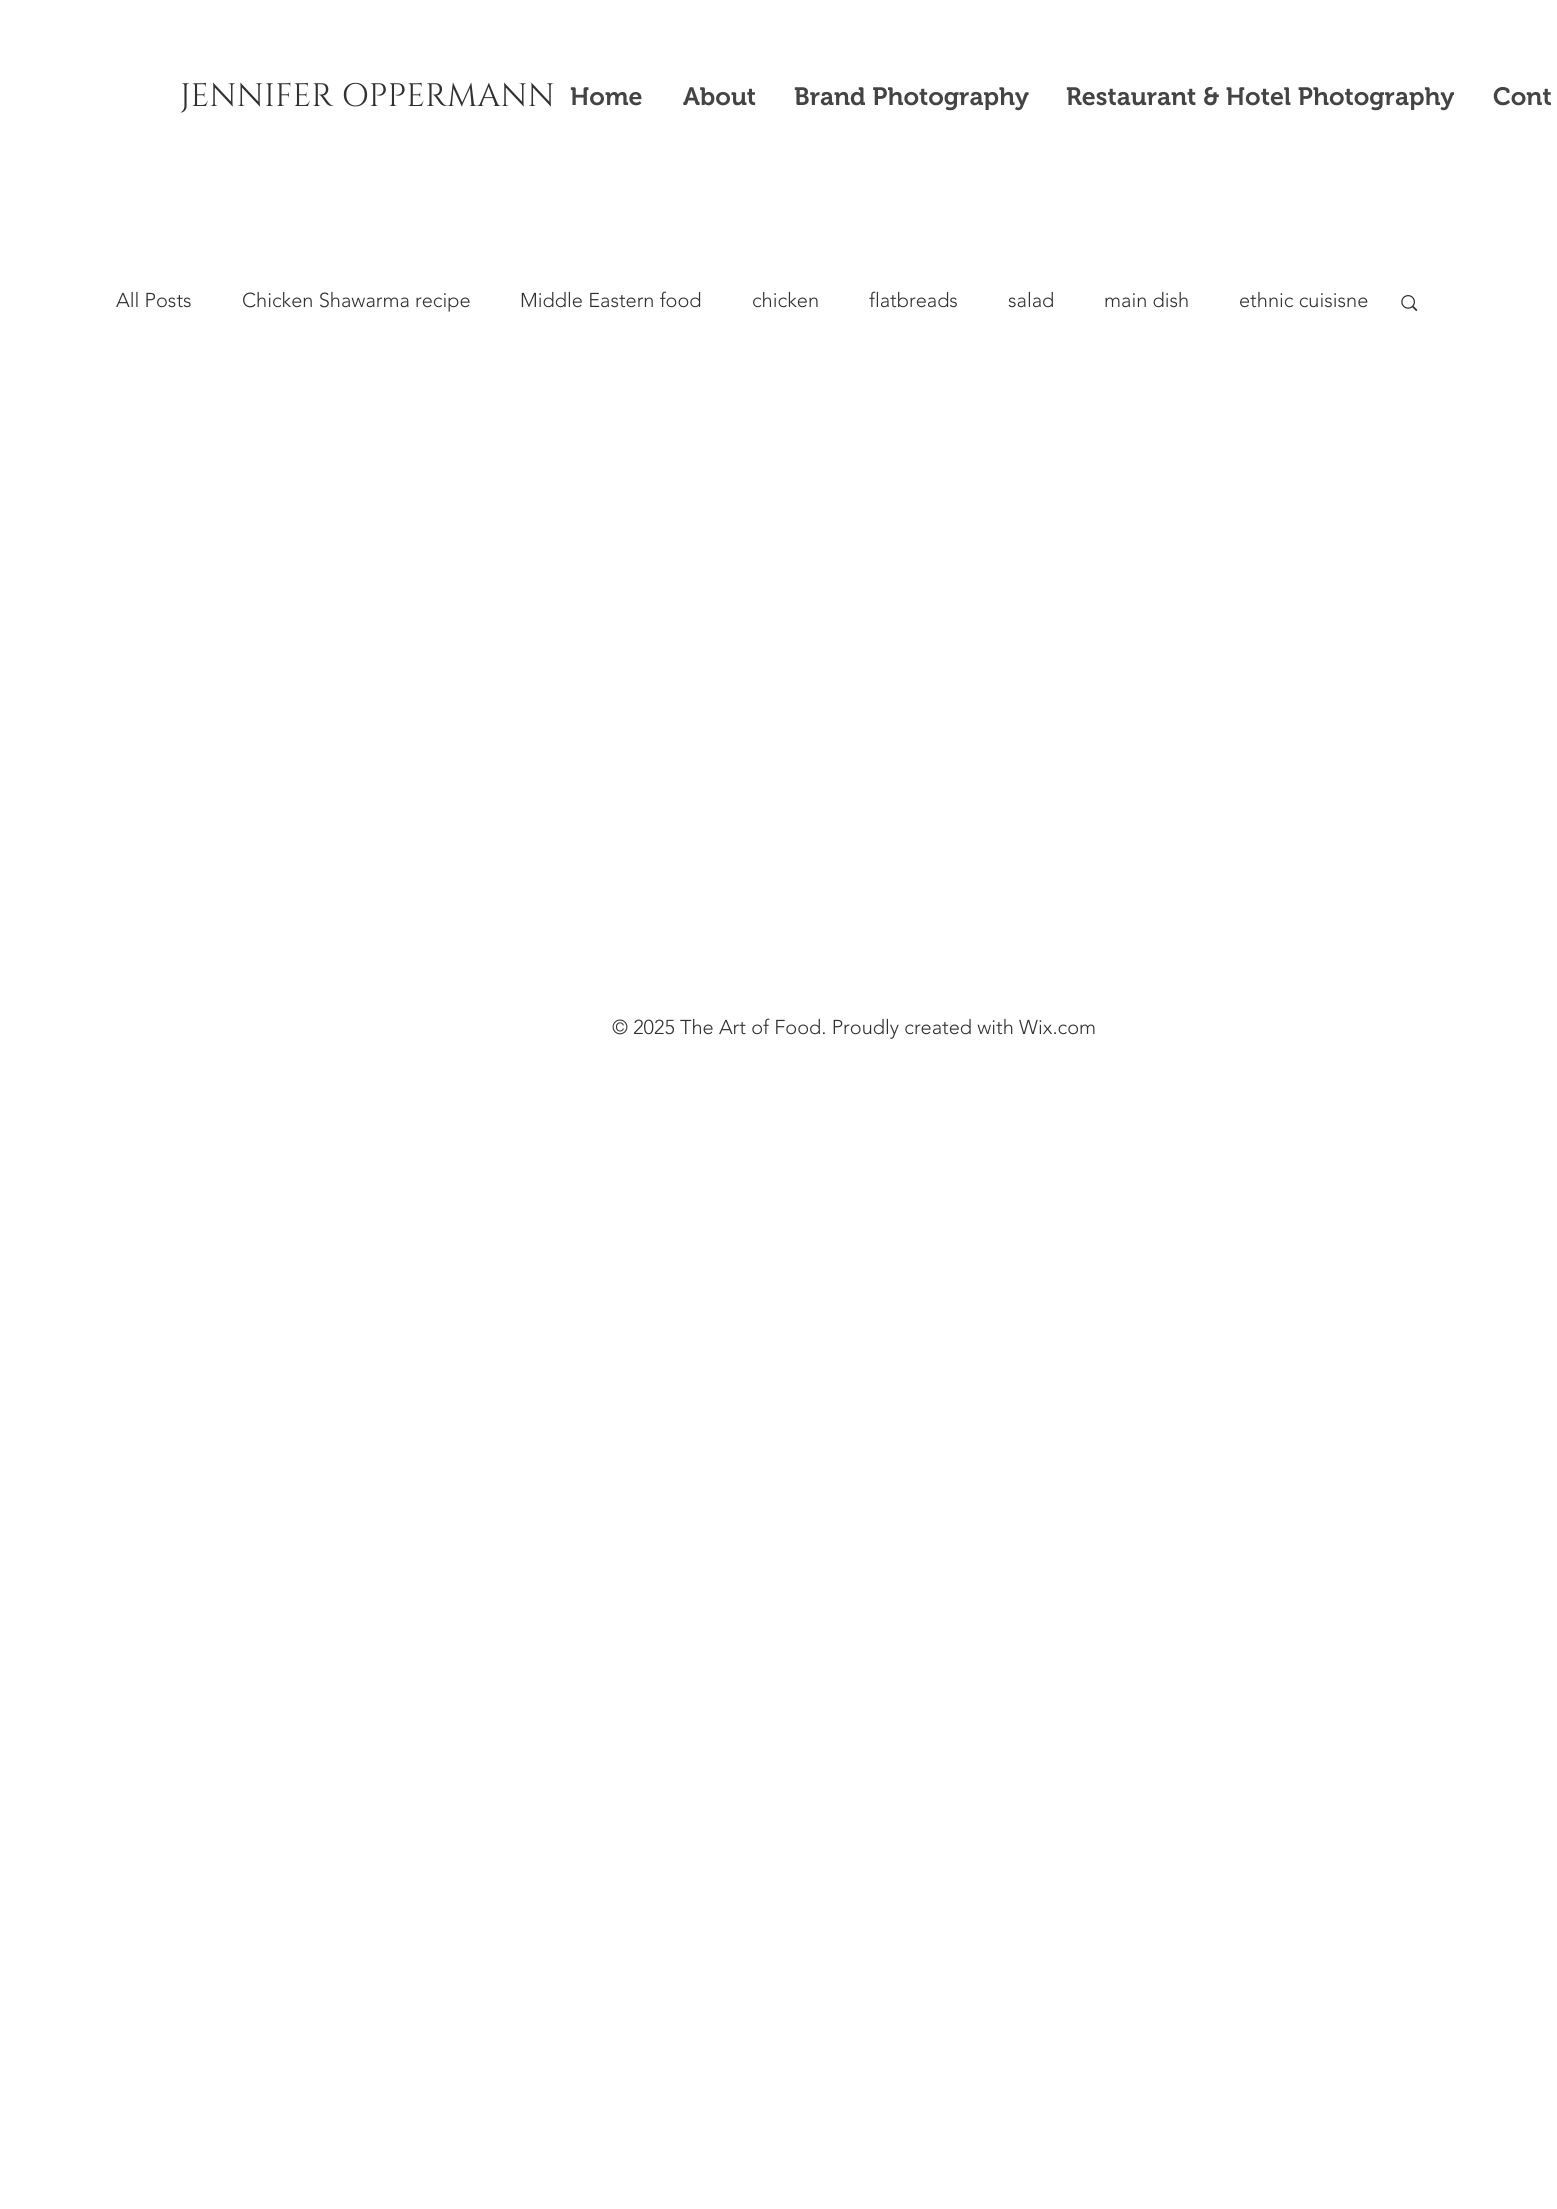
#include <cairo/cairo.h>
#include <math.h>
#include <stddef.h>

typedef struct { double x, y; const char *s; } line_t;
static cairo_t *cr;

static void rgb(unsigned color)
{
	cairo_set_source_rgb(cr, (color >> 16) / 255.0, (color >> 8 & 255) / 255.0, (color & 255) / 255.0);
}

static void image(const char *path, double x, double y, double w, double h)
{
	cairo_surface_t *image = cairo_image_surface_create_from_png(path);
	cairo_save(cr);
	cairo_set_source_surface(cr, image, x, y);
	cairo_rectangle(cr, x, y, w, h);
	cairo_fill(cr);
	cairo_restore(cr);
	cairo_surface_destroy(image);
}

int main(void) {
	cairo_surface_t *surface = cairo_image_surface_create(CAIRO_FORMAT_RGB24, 1557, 2209);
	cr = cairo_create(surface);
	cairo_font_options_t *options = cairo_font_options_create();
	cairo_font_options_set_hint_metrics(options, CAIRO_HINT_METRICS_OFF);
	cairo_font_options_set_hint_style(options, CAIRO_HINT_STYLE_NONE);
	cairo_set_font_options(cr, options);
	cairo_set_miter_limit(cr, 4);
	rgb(0xffffff);
	cairo_paint(cr);
	image("img/1.png", 1401, 295, 17, 17);
	cairo_select_font_face(cr, "Cinzel", CAIRO_FONT_SLANT_NORMAL, CAIRO_FONT_WEIGHT_NORMAL);
	cairo_set_font_size(cr, 32.5);
	rgb(0x303131);
	cairo_move_to(cr, 180, 106);
	cairo_show_text(cr, "JENNIFER OPPERMANN");
	cairo_select_font_face(cr, "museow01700 SemiBold", CAIRO_FONT_SLANT_NORMAL, CAIRO_FONT_WEIGHT_NORMAL);
	cairo_set_font_size(cr, 25);
	rgb(0x444444);
	{
		static const line_t items[] = {
			{570, 105, "Home"},
			{683, 105, "About"},
			{794, 105, "Brand Photography"},
			{1066, 105, "Restaurant & Hotel Photography"},
			{1493, 105, "Cont"},
		};
		for (size_t i = 0; i < sizeof items / sizeof *items; i++) {
			cairo_move_to(cr, items[i].x, items[i].y);
			cairo_show_text(cr, items[i].s);
		}
	}
	cairo_select_font_face(cr, "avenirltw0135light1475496 Light", CAIRO_FONT_SLANT_NORMAL, CAIRO_FONT_WEIGHT_NORMAL);
	cairo_set_font_size(cr, 20);
	rgb(0x303131);
	{
		static const line_t items[] = {
			{116, 307, "All Posts"},
			{242, 307, "Chicken Shawarma recipe"},
			{520, 307, "Middle Eastern food"},
			{752, 307, "chicken"},
			{869, 307, "flatbreads"},
			{1008, 307, "salad"},
			{1104, 307, "main dish"},
			{1239, 307, "ethnic cuisisne"},
			{612, 1034, "© 2025 The Art of Food. Proudly created with Wix.com"},
		};
		for (size_t i = 0; i < sizeof items / sizeof *items; i++) {
			cairo_move_to(cr, items[i].x, items[i].y);
			cairo_show_text(cr, items[i].s);
		}
	}
	cairo_surface_write_to_png(surface, "page.png");
	cairo_font_options_destroy(options);
	cairo_destroy(cr);
	cairo_surface_destroy(surface);
	return 0;
}
